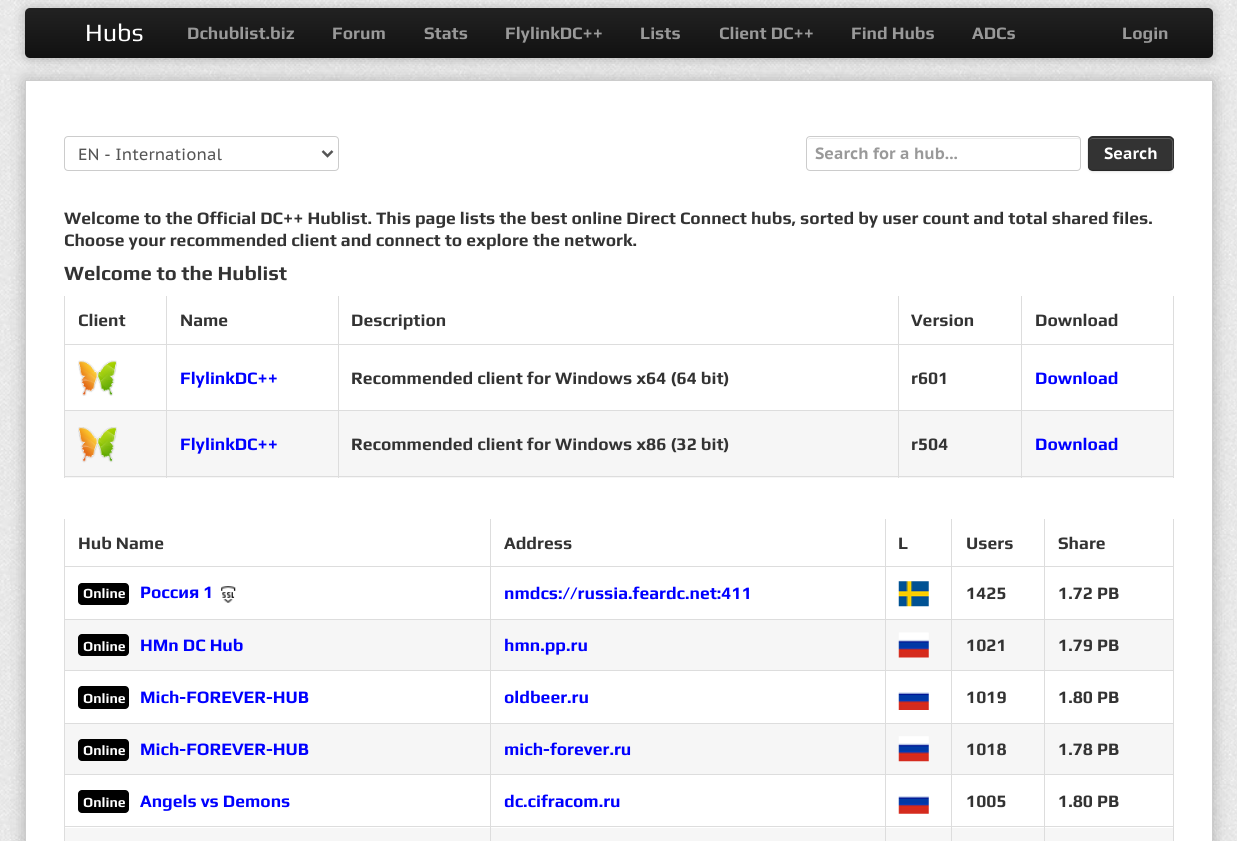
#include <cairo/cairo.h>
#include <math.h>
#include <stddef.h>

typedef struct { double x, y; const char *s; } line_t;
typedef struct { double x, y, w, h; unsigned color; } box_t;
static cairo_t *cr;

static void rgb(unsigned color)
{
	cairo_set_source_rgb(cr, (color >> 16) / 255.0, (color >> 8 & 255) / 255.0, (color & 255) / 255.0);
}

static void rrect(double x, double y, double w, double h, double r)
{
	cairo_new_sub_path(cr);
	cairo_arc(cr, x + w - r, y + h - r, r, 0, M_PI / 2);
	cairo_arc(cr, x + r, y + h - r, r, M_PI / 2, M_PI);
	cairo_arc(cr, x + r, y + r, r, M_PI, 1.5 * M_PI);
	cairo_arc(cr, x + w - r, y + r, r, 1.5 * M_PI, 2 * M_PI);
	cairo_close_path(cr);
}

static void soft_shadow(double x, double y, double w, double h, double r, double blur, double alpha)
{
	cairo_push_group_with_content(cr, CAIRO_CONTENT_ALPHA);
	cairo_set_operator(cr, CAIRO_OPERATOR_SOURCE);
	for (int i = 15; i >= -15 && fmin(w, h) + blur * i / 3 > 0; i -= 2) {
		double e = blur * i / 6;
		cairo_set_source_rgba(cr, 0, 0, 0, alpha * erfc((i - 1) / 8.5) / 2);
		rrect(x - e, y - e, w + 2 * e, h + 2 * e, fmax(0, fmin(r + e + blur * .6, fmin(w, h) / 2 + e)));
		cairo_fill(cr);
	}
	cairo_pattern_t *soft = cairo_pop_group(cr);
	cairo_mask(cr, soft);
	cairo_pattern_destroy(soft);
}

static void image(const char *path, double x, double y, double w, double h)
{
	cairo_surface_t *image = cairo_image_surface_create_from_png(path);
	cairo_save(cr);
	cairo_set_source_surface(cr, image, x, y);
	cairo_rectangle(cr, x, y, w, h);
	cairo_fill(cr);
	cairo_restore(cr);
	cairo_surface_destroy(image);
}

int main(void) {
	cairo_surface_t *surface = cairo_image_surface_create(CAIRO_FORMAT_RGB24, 1237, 841);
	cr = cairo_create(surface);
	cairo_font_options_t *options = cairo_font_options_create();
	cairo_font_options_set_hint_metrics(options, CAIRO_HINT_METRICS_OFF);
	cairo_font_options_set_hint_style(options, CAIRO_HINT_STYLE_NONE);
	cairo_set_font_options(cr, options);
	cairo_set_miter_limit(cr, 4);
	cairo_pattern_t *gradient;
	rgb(0xffffff);
	cairo_paint(cr);
	image("img/1.png", 0, 0, 1237, 841);
	rgb(0x000000);
	soft_shadow(25, 9, 1188, 50, 5, 6, 0.25);
	gradient = cairo_pattern_create_linear(619, 7.5, 619, 58);
	cairo_pattern_add_color_stop_rgba(gradient, 0, 0.133, 0.133, 0.133, 1);
	cairo_pattern_add_color_stop_rgba(gradient, 1, 0.067, 0.067, 0.067, 1);
	cairo_set_source(cr, gradient);
	cairo_pattern_destroy(gradient);
	rrect(25, 8, 1188, 50, 5);
	cairo_fill(cr);
	rgb(0x000000);
	soft_shadow(25, 81, 1188, 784, 0, 8, 0.25);
	rgb(0xffffff);
	cairo_rectangle(cr, 25.5, 80.5, 1187, 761);
	cairo_fill_preserve(cr);
	rgb(0xcccccc);
	cairo_set_line_width(cr, 1);
	cairo_stroke(cr);
	rrect(64.5, 136.5, 274, 34, 3.5);
	cairo_stroke(cr);
	cairo_new_path(cr);
	cairo_move_to(cr, 322.5, 151);
	cairo_line_to(cr, 327.5, 156);
	cairo_line_to(cr, 332.5, 151);
	rgb(0x555555);
	cairo_set_line_width(cr, 2.5);
	cairo_stroke(cr);
	rgb(0xececec);
	cairo_new_path(cr);
	cairo_move_to(cr, 810, 139);
	cairo_line_to(cr, 1078, 139);
	cairo_curve_to(cr, 1079, 139, 1080, 140, 1080, 141);
	cairo_curve_to(cr, 1080, 139, 1079, 138, 1078, 138);
	cairo_line_to(cr, 810, 138);
	cairo_curve_to(cr, 809, 138, 808, 139, 808, 141);
	cairo_curve_to(cr, 808, 140, 809, 139, 810, 139);
	cairo_close_path(cr);
	cairo_fill(cr);
	rrect(806.5, 136.5, 274, 34, 3.5);
	rgb(0xcccccc);
	cairo_set_line_width(cr, 1);
	cairo_stroke(cr);
	rgb(0x000000);
	soft_shadow(1088, 138, 86, 35, 5, 1, 0.05);
	rgb(0x333333);
	rrect(1088, 136, 86, 35, 5);
	cairo_fill(cr);
	cairo_save(cr);
	rrect(1088, 136, 86, 35, 5);
	cairo_clip(cr);
	cairo_rectangle(cr, 1088, 138, 86, 32);
	cairo_fill(cr);
	cairo_restore(cr);
	rgb(0x5c5c5c);
	cairo_new_path(cr);
	cairo_move_to(cr, 1092, 139);
	cairo_line_to(cr, 1169, 139);
	cairo_curve_to(cr, 1173, 139, 1172, 144, 1172, 146);
	cairo_line_to(cr, 1172, 169);
	cairo_curve_to(cr, 1173, 168, 1173, 167, 1173, 166);
	cairo_line_to(cr, 1173, 142);
	cairo_curve_to(cr, 1173, 140, 1171, 138, 1169, 138);
	cairo_line_to(cr, 1093, 138);
	cairo_curve_to(cr, 1092, 138, 1090, 139, 1090, 140);
	cairo_close_path(cr);
	cairo_fill(cr);
	cairo_new_path(cr);
	cairo_move_to(cr, 1172, 169.5);
	cairo_line_to(cr, 1169, 170.5);
	cairo_line_to(cr, 1092, 170.5);
	cairo_line_to(cr, 1089.5, 169.5);
	cairo_set_source_rgba(cr, 0, 0, 0, 0.25);
	cairo_set_line_width(cr, 1.2);
	cairo_stroke(cr);
	cairo_new_path(cr);
	cairo_move_to(cr, 1089.5, 169.5);
	cairo_curve_to(cr, 1087, 167, 1088, 157, 1088, 154);
	cairo_curve_to(cr, 1088, 134.5, 1085.5, 137, 1105, 137);
	cairo_line_to(cr, 1156, 137);
	cairo_curve_to(cr, 1175.5, 137, 1173, 134.5, 1173, 154);
	cairo_curve_to(cr, 1173, 157, 1174.5, 167, 1172, 169.5);
	cairo_set_source_rgba(cr, 0, 0, 0, 0.1);
	cairo_stroke(cr);
	{
		static const box_t items[] = {
			{1021, 344, 153, 1, 0xdddddd},
			{1021, 410, 153, 1, 0xdddddd},
			{65, 411, 1108, 67, 0xf6f6f6},
			{1173, 410, 1, 68, 0xdddddd},
			{1021, 476, 153, 1, 0xdddddd},
			{1021, 410, 1, 68, 0xdddddd},
			{898, 410, 125, 1, 0xdddddd},
			{1021, 344, 1, 67, 0xdddddd},
			{898, 344, 125, 1, 0xdddddd},
			{898, 476, 125, 1, 0xdddddd},
			{898, 410, 1, 68, 0xdddddd},
			{338, 410, 561, 1, 0xdddddd},
			{898, 344, 1, 67, 0xdddddd},
			{338, 344, 561, 1, 0xdddddd},
			{338, 476, 561, 1, 0xdddddd},
			{338, 410, 1, 68, 0xdddddd},
			{166, 410, 173, 1, 0xdddddd},
			{338, 344, 1, 67, 0xdddddd},
			{166, 344, 173, 1, 0xdddddd},
			{166, 476, 173, 1, 0xdddddd},
			{166, 410, 1, 68, 0xdddddd},
			{64, 410, 104, 1, 0xdddddd},
			{166, 344, 1, 67, 0xdddddd},
			{64, 344, 104, 1, 0xdddddd},
			{166, 296, 1, 49, 0xdddddd},
			{338, 296, 1, 49, 0xdddddd},
			{898, 296, 1, 49, 0xdddddd},
			{1021, 296, 1, 49, 0xdddddd},
			{64, 476, 104, 1, 0xdddddd},
			{64, 410, 1, 68, 0xdddddd},
			{64, 296, 1, 115, 0xdddddd},
		};
		for (size_t i = 0; i < sizeof items / sizeof *items; i++) {
			rgb(items[i].color);
			cairo_rectangle(cr, items[i].x, items[i].y, items[i].w, items[i].h);
			cairo_fill(cr);
		}
	}
	image("img/2.png", 78, 360, 39, 36);
	cairo_rectangle(cr, 1173, 296, 1, 115);
	cairo_fill(cr);
	image("img/3.png", 78, 427, 39, 36);
	{
		static const box_t items[] = {
			{1044, 566, 130, 1, 0xdddddd},
			{1044, 619, 130, 1, 0xdddddd},
			{65, 620, 1108, 50, 0xf6f6f6},
			{1044, 670, 130, 1, 0xdddddd},
			{1044, 723, 130, 1, 0xdddddd},
			{65, 724, 1108, 50, 0xf6f6f6},
			{1044, 774, 130, 1, 0xdddddd},
			{1044, 826, 130, 1, 0xdddddd},
			{65, 828, 1108, 13, 0xf6f6f6},
			{1044, 826, 1, 15, 0xdddddd},
			{951, 826, 94, 1, 0xdddddd},
			{1044, 774, 1, 54, 0xdddddd},
			{951, 774, 94, 1, 0xdddddd},
			{1044, 723, 1, 52, 0xdddddd},
			{951, 723, 94, 1, 0xdddddd},
			{1044, 670, 1, 54, 0xdddddd},
			{951, 670, 94, 1, 0xdddddd},
			{1044, 619, 1, 52, 0xdddddd},
			{951, 619, 94, 1, 0xdddddd},
			{1044, 566, 1, 54, 0xdddddd},
			{951, 566, 94, 1, 0xdddddd},
			{951, 826, 1, 15, 0xdddddd},
			{885, 826, 68, 1, 0xdddddd},
			{951, 774, 1, 54, 0xdddddd},
			{885, 774, 68, 1, 0xdddddd},
			{951, 723, 1, 52, 0xdddddd},
			{885, 723, 68, 1, 0xdddddd},
			{951, 670, 1, 54, 0xdddddd},
			{885, 670, 68, 1, 0xdddddd},
			{951, 619, 1, 52, 0xdddddd},
			{885, 619, 68, 1, 0xdddddd},
			{951, 566, 1, 54, 0xdddddd},
			{885, 566, 68, 1, 0xdddddd},
			{885, 826, 1, 15, 0xdddddd},
			{490, 826, 396, 1, 0xdddddd},
			{885, 774, 1, 54, 0xdddddd},
			{490, 774, 396, 1, 0xdddddd},
			{885, 723, 1, 52, 0xdddddd},
			{490, 723, 396, 1, 0xdddddd},
			{885, 670, 1, 54, 0xdddddd},
			{490, 670, 396, 1, 0xdddddd},
			{885, 619, 1, 52, 0xdddddd},
			{490, 619, 396, 1, 0xdddddd},
			{885, 566, 1, 54, 0xdddddd},
			{490, 566, 396, 1, 0xdddddd},
			{490, 826, 1, 15, 0xdddddd},
			{64, 826, 427, 1, 0xdddddd},
			{490, 774, 1, 54, 0xdddddd},
			{64, 774, 427, 1, 0xdddddd},
			{490, 723, 1, 52, 0xdddddd},
			{64, 723, 427, 1, 0xdddddd},
			{490, 670, 1, 54, 0xdddddd},
			{64, 670, 427, 1, 0xdddddd},
			{490, 619, 1, 52, 0xdddddd},
			{64, 619, 427, 1, 0xdddddd},
			{490, 566, 1, 54, 0xdddddd},
			{64, 566, 427, 1, 0xdddddd},
			{490, 519, 1, 49, 0xdddddd},
			{885, 519, 1, 49, 0xdddddd},
			{951, 519, 1, 49, 0xdddddd},
			{1044, 519, 1, 49, 0xdddddd},
			{64, 826, 1, 15, 0xdddddd},
			{64, 774, 1, 54, 0xdddddd},
			{64, 723, 1, 52, 0xdddddd},
			{64, 670, 1, 54, 0xdddddd},
			{64, 619, 1, 52, 0xdddddd},
			{64, 519, 1, 101, 0xdddddd},
		};
		for (size_t i = 0; i < sizeof items / sizeof *items; i++) {
			rgb(items[i].color);
			cairo_rectangle(cr, items[i].x, items[i].y, items[i].w, items[i].h);
			cairo_fill(cr);
		}
	}
	rgb(0x000000);
	rrect(78, 583, 51, 22, 4);
	cairo_fill(cr);
	image("img/4.png", 221, 586, 15, 17);
	image("img/5.png", 898, 581, 31, 26);
	{
		static const box_t items[] = {
			{1173, 826, 1, 15, 0xdddddd},
			{1173, 774, 1, 54, 0xdddddd},
			{1173, 723, 1, 52, 0xdddddd},
			{1173, 670, 1, 54, 0xdddddd},
			{1173, 619, 1, 52, 0xdddddd},
			{1173, 519, 1, 101, 0xdddddd},
		};
		for (size_t i = 0; i < sizeof items / sizeof *items; i++) {
			rgb(items[i].color);
			cairo_rectangle(cr, items[i].x, items[i].y, items[i].w, items[i].h);
			cairo_fill(cr);
		}
	}
	rgb(0x000000);
	rrect(78, 634, 51, 22, 4);
	cairo_fill(cr);
	image("img/6.png", 898, 632, 31, 26);
	rrect(78, 686, 51, 23, 4);
	cairo_fill(cr);
	image("img/7.png", 898, 692, 31, 18);
	rrect(78, 739, 51, 22, 4);
	cairo_fill(cr);
	image("img/8.png", 898, 736, 31, 26);
	rrect(78, 790, 51, 23, 4);
	cairo_fill(cr);
	image("img/9.png", 898, 796, 31, 18);
	cairo_select_font_face(cr, "Play", CAIRO_FONT_SLANT_NORMAL, CAIRO_FONT_WEIGHT_NORMAL);
	cairo_set_font_size(cr, 25);
	rgb(0xffffff);
	cairo_move_to(cr, 85, 41);
	cairo_show_text(cr, "Hubs");
	cairo_select_font_face(cr, "Play", CAIRO_FONT_SLANT_NORMAL, CAIRO_FONT_WEIGHT_BOLD);
	cairo_set_font_size(cr, 17.5);
	rgb(0x999999);
	{
		static const line_t items[] = {
			{187, 39, "Dchublist.biz"},
			{332, 39, "Forum"},
			{424, 39, "Stats"},
			{505, 39, "FlylinkDC++"},
			{640, 39, "Lists"},
			{719, 39, "Client DC++"},
			{851, 39, "Find Hubs"},
			{972, 39, "ADCs"},
			{1122, 39, "Login"},
		};
		for (size_t i = 0; i < sizeof items / sizeof *items; i++) {
			cairo_move_to(cr, items[i].x, items[i].y);
			cairo_show_text(cr, items[i].s);
		}
	}
	cairo_select_font_face(cr, "PT Sans Caption", CAIRO_FONT_SLANT_NORMAL, CAIRO_FONT_WEIGHT_NORMAL);
	cairo_set_font_size(cr, 16.25);
	rgb(0x555555);
	cairo_move_to(cr, 78, 160);
	cairo_show_text(cr, "EN - International");
	cairo_select_font_face(cr, "PT Sans Caption", CAIRO_FONT_SLANT_NORMAL, CAIRO_FONT_WEIGHT_BOLD);
	rgb(0x999999);
	cairo_move_to(cr, 815, 159);
	cairo_show_text(cr, "Search for a hub...");
	rgb(0xffffff);
	cairo_move_to(cr, 1104, 159);
	cairo_show_text(cr, "Search");
	cairo_select_font_face(cr, "Play", CAIRO_FONT_SLANT_NORMAL, CAIRO_FONT_WEIGHT_BOLD);
	cairo_set_font_size(cr, 17.5);
	rgb(0x333333);
	cairo_move_to(cr, 64, 224);
	cairo_show_text(cr, "Welcome to the Official DC++ Hublist. This page lists the best online Direct Connect hubs, sorted by user count and total shared files.");
	cairo_move_to(cr, 64, 246);
	cairo_show_text(cr, "Choose your recommended client and connect to explore the network.");
	cairo_set_font_size(cr, 20.25);
	cairo_move_to(cr, 64, 280);
	cairo_show_text(cr, "Welcome to the Hublist");
	cairo_set_font_size(cr, 17.5);
	{
		static const line_t items[] = {
			{78, 326, "Client"},
			{180, 326, "Name"},
			{351, 326, "Description"},
			{911, 326, "Version"},
			{1035, 326, "Download"},
		};
		for (size_t i = 0; i < sizeof items / sizeof *items; i++) {
			cairo_move_to(cr, items[i].x, items[i].y);
			cairo_show_text(cr, items[i].s);
		}
	}
	rgb(0x0000ff);
	cairo_move_to(cr, 180, 384);
	cairo_show_text(cr, "FlylinkDC++");
	rgb(0x333333);
	cairo_move_to(cr, 351, 384);
	cairo_show_text(cr, "Recommended client for Windows x64 (64 bit)");
	cairo_move_to(cr, 911, 384);
	cairo_show_text(cr, "r601");
	rgb(0x0000ff);
	cairo_move_to(cr, 1035, 384);
	cairo_show_text(cr, "Download");
	cairo_move_to(cr, 180, 450);
	cairo_show_text(cr, "FlylinkDC++");
	rgb(0x333333);
	cairo_move_to(cr, 351, 450);
	cairo_show_text(cr, "Recommended client for Windows x86 (32 bit)");
	cairo_move_to(cr, 911, 450);
	cairo_show_text(cr, "r504");
	rgb(0x0000ff);
	cairo_move_to(cr, 1035, 450);
	cairo_show_text(cr, "Download");
	rgb(0x333333);
	{
		static const line_t items[] = {
			{78, 549, "Hub Name"},
			{504, 549, "Address"},
			{898, 549, "L"},
			{966, 549, "Users"},
			{1058, 549, "Share"},
		};
		for (size_t i = 0; i < sizeof items / sizeof *items; i++) {
			cairo_move_to(cr, items[i].x, items[i].y);
			cairo_show_text(cr, items[i].s);
		}
	}
	cairo_set_font_size(cr, 14);
	rgb(0xffffff);
	cairo_move_to(cr, 83, 598);
	cairo_show_text(cr, "Online");
	cairo_set_font_size(cr, 17.5);
	rgb(0x0000ff);
	cairo_move_to(cr, 140, 598);
	cairo_show_text(cr, "Россия 1");
	cairo_move_to(cr, 504, 599);
	cairo_show_text(cr, "nmdcs://russia.feardc.net:411");
	rgb(0x333333);
	cairo_move_to(cr, 966, 599);
	cairo_show_text(cr, "1425");
	cairo_move_to(cr, 1058, 599);
	cairo_show_text(cr, "1.72 PB");
	cairo_set_font_size(cr, 14);
	rgb(0xffffff);
	cairo_move_to(cr, 83, 651);
	cairo_show_text(cr, "Online");
	cairo_set_font_size(cr, 17.5);
	rgb(0x0000ff);
	cairo_move_to(cr, 140, 651);
	cairo_show_text(cr, "HMn DC Hub");
	cairo_move_to(cr, 504, 651);
	cairo_show_text(cr, "hmn.pp.ru");
	rgb(0x333333);
	cairo_move_to(cr, 966, 651);
	cairo_show_text(cr, "1021");
	cairo_move_to(cr, 1058, 651);
	cairo_show_text(cr, "1.79 PB");
	cairo_set_font_size(cr, 14);
	rgb(0xffffff);
	cairo_move_to(cr, 83, 703);
	cairo_show_text(cr, "Online");
	cairo_set_font_size(cr, 17.5);
	rgb(0x0000ff);
	cairo_move_to(cr, 140, 703);
	cairo_show_text(cr, "Mich-FOREVER-HUB");
	cairo_move_to(cr, 504, 703);
	cairo_show_text(cr, "oldbeer.ru");
	rgb(0x333333);
	cairo_move_to(cr, 966, 703);
	cairo_show_text(cr, "1019");
	cairo_move_to(cr, 1058, 703);
	cairo_show_text(cr, "1.80 PB");
	cairo_set_font_size(cr, 14);
	rgb(0xffffff);
	cairo_move_to(cr, 83, 755);
	cairo_show_text(cr, "Online");
	cairo_set_font_size(cr, 17.5);
	rgb(0x0000ff);
	cairo_move_to(cr, 140, 755);
	cairo_show_text(cr, "Mich-FOREVER-HUB");
	cairo_move_to(cr, 504, 755);
	cairo_show_text(cr, "mich-forever.ru");
	rgb(0x333333);
	cairo_move_to(cr, 966, 755);
	cairo_show_text(cr, "1018");
	cairo_move_to(cr, 1058, 755);
	cairo_show_text(cr, "1.78 PB");
	cairo_set_font_size(cr, 14);
	rgb(0xffffff);
	cairo_move_to(cr, 83, 807);
	cairo_show_text(cr, "Online");
	cairo_set_font_size(cr, 17.5);
	rgb(0x0000ff);
	cairo_move_to(cr, 140, 807);
	cairo_show_text(cr, "Angels vs Demons");
	cairo_move_to(cr, 504, 807);
	cairo_show_text(cr, "dc.cifracom.ru");
	rgb(0x333333);
	cairo_move_to(cr, 966, 807);
	cairo_show_text(cr, "1005");
	cairo_move_to(cr, 1058, 807);
	cairo_show_text(cr, "1.80 PB");
	cairo_surface_write_to_png(surface, "page.png");
	cairo_font_options_destroy(options);
	cairo_destroy(cr);
	cairo_surface_destroy(surface);
	return 0;
}
